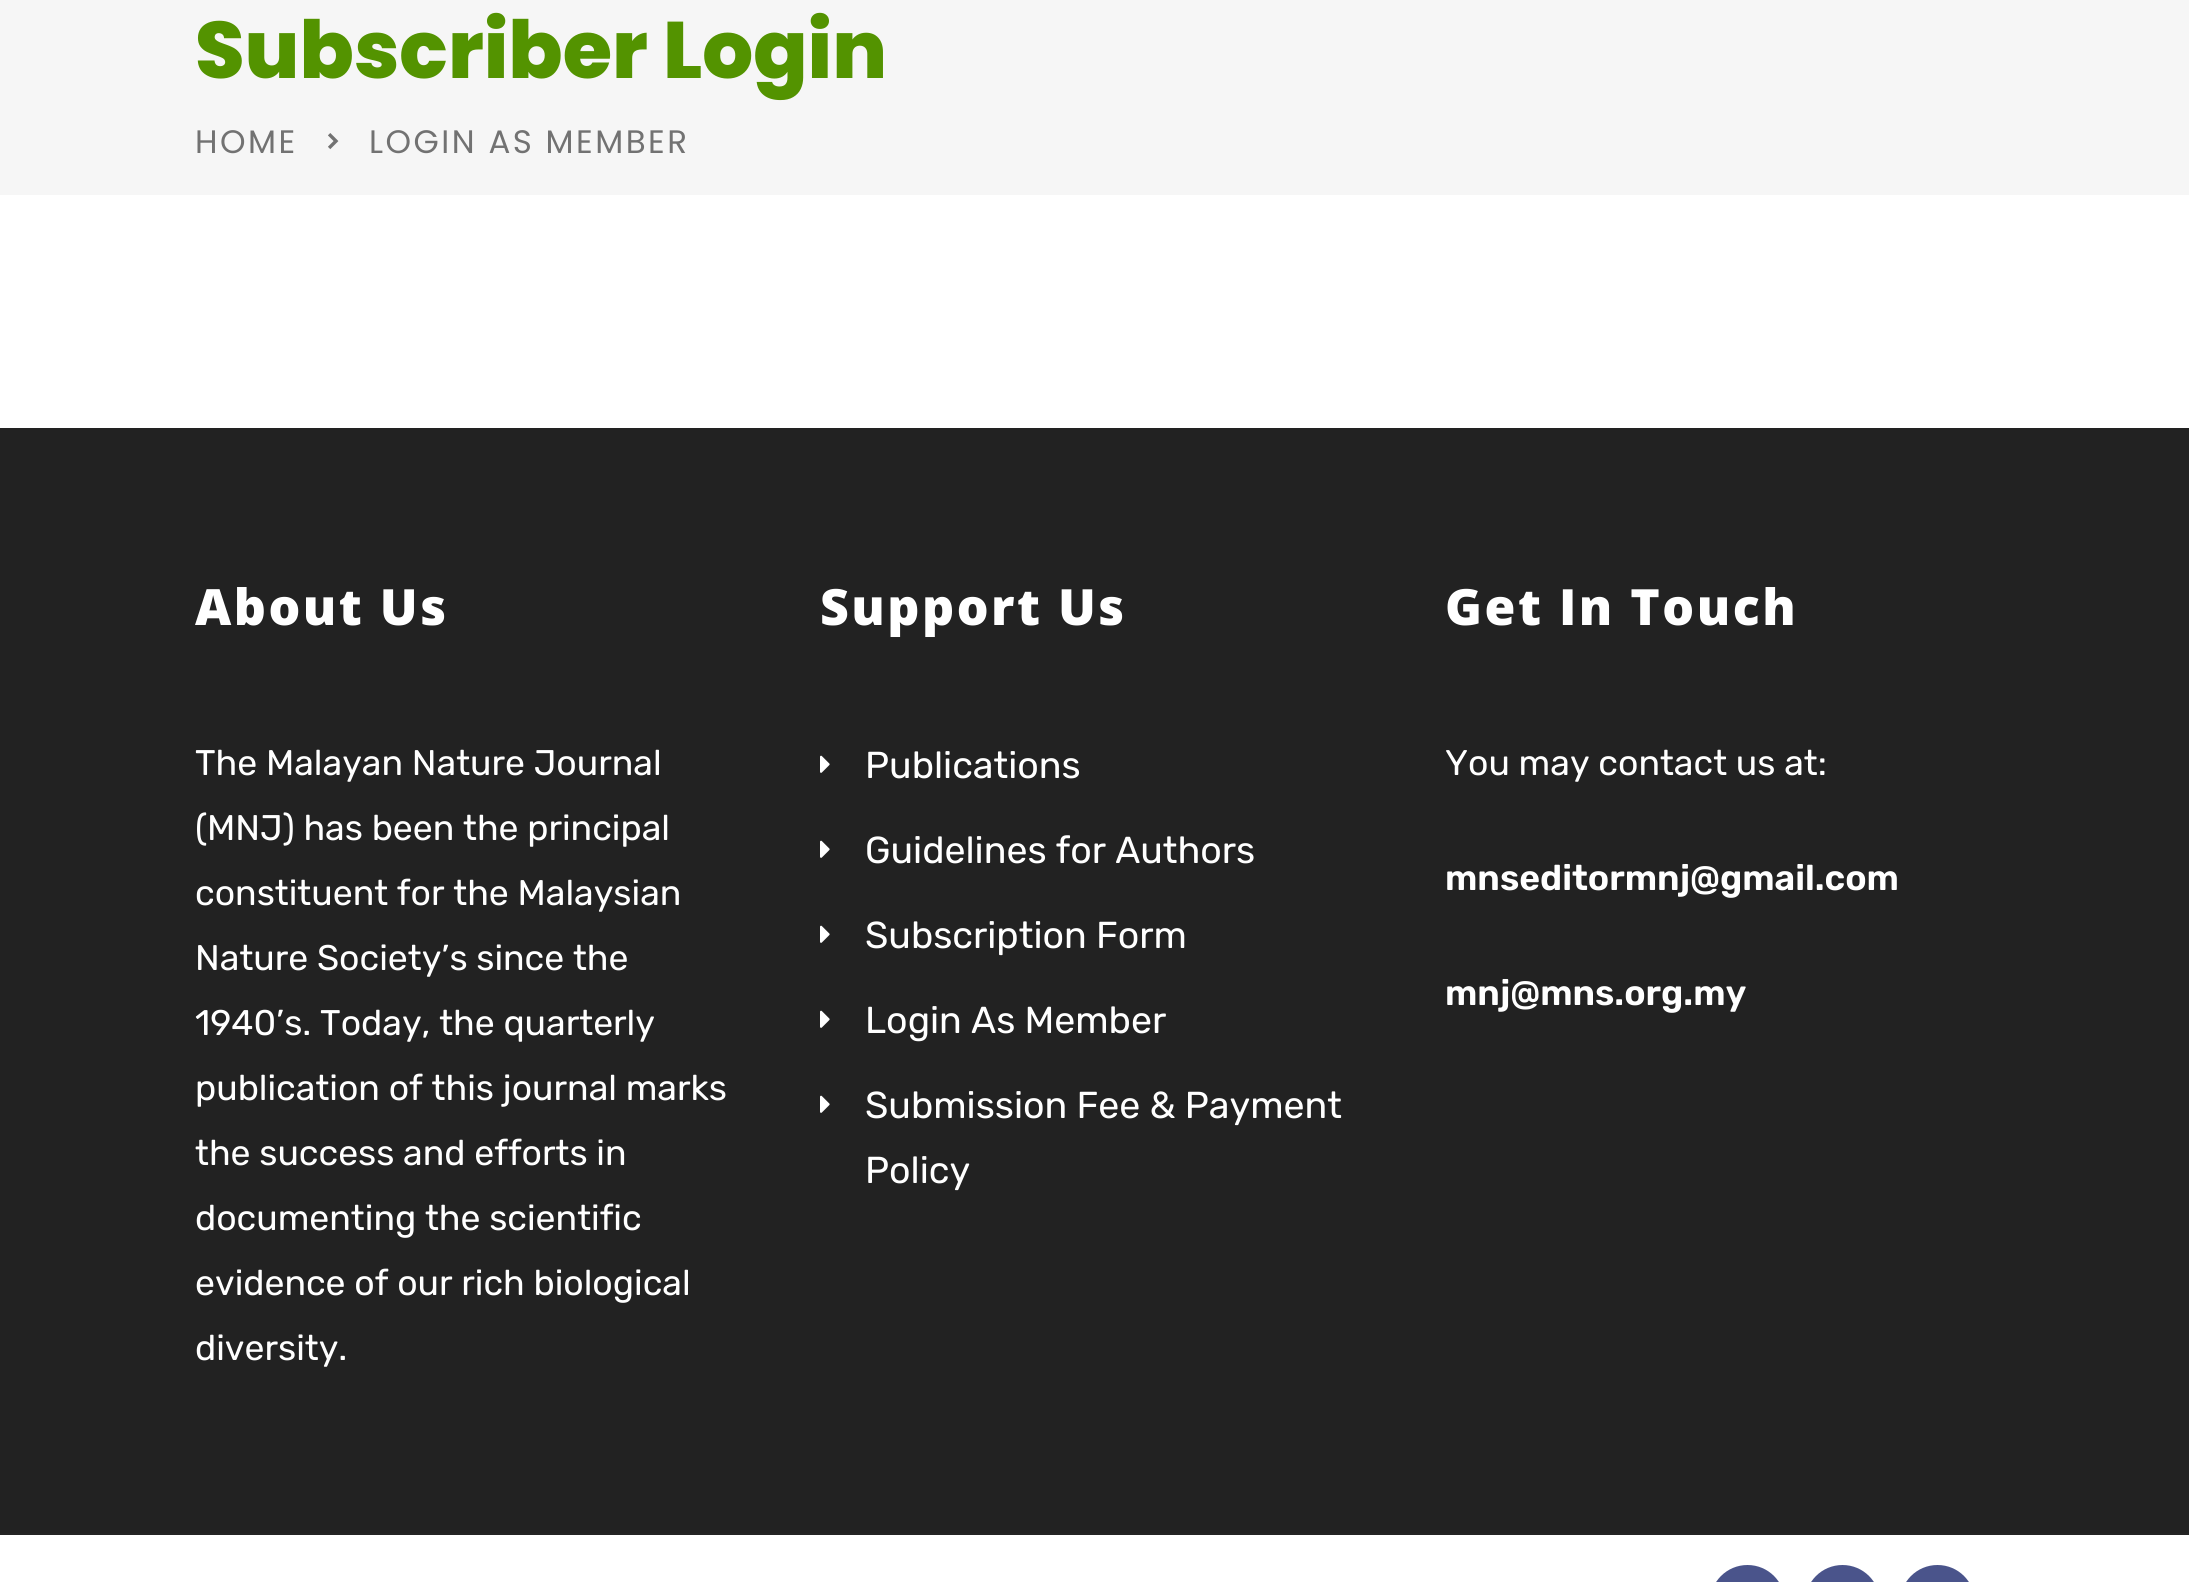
#include <cairo/cairo.h>
#include <math.h>
#include <stddef.h>

typedef struct { double x, y; const char *s; } line_t;
static cairo_t *cr;

static void rgb(unsigned color)
{
	cairo_set_source_rgb(cr, (color >> 16) / 255.0, (color >> 8 & 255) / 255.0, (color & 255) / 255.0);
}

static void tracked(double x, double y, const char *s, double letter, double word)
{
	cairo_move_to(cr, x, y);
	while (*s) {
		char ch[5] = {0};
		int n = 0;
		do ch[n++] = *s++; while ((*s & 0xC0) == 0x80);
		cairo_show_text(cr, ch);
		cairo_rel_move_to(cr, letter + word * (*ch == ' '), 0);
	}
}

static void rrect(double x, double y, double w, double h, double r)
{
	cairo_new_sub_path(cr);
	cairo_arc(cr, x + w - r, y + h - r, r, 0, M_PI / 2);
	cairo_arc(cr, x + r, y + h - r, r, M_PI / 2, M_PI);
	cairo_arc(cr, x + r, y + r, r, M_PI, 1.5 * M_PI);
	cairo_arc(cr, x + w - r, y + r, r, 1.5 * M_PI, 2 * M_PI);
	cairo_close_path(cr);
}

static void image(const char *path, double x, double y, double w, double h)
{
	cairo_surface_t *image = cairo_image_surface_create_from_png(path);
	cairo_save(cr);
	cairo_set_source_surface(cr, image, x, y);
	cairo_rectangle(cr, x, y, w, h);
	cairo_fill(cr);
	cairo_restore(cr);
	cairo_surface_destroy(image);
}

int main(void) {
	cairo_surface_t *surface = cairo_image_surface_create(CAIRO_FORMAT_RGB24, 2189, 1582);
	cr = cairo_create(surface);
	cairo_font_options_t *options = cairo_font_options_create();
	cairo_font_options_set_hint_metrics(options, CAIRO_HINT_METRICS_OFF);
	cairo_font_options_set_hint_style(options, CAIRO_HINT_STYLE_NONE);
	cairo_set_font_options(cr, options);
	cairo_set_miter_limit(cr, 4);
	rgb(0xffffff);
	cairo_paint(cr);
	rgb(0xf6f6f6);
	cairo_rectangle(cr, 0, 0, 2189, 195);
	cairo_fill(cr);
	image("img/1.png", 328, 133, 11, 17);
	rgb(0x222222);
	cairo_rectangle(cr, 0, 428, 2189, 1105);
	cairo_fill(cr);
	rgb(0x242424);
	cairo_rectangle(cr, 0, 1533, 2189, 2);
	cairo_fill(cr);
	image("img/2.png", 820, 755, 10, 18);
	image("img/2.png", 820, 840, 10, 18);
	image("img/2.png", 820, 925, 10, 18);
	image("img/2.png", 820, 1010, 10, 18);
	image("img/2.png", 820, 1095, 10, 18);
	rgb(0x4a548b);
	rrect(1710, 1565, 75, 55, 37.5);
	cairo_fill(cr);
	rrect(1805, 1565, 75, 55, 37.5);
	cairo_fill(cr);
	rrect(1900, 1565, 75, 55, 37.5);
	cairo_fill(cr);
	cairo_select_font_face(cr, "Poppins ExtraBold", CAIRO_FONT_SLANT_NORMAL, CAIRO_FONT_WEIGHT_NORMAL);
	cairo_set_font_size(cr, 80);
	rgb(0x539300);
	cairo_move_to(cr, 195, 78);
	cairo_show_text(cr, "Subscriber Login");
	cairo_select_font_face(cr, "Poppins", CAIRO_FONT_SLANT_NORMAL, CAIRO_FONT_WEIGHT_NORMAL);
	cairo_set_font_size(cr, 32.5);
	rgb(0x727272);
	tracked(195, 153, "HOME", 2.5, 0);
	tracked(369, 153, "LOGIN AS MEMBER", 2.5, 0);
	cairo_select_font_face(cr, "Open Sans ExtraBold", CAIRO_FONT_SLANT_NORMAL, CAIRO_FONT_WEIGHT_NORMAL);
	cairo_set_font_size(cr, 50);
	rgb(0xffffff);
	tracked(195, 625, "About Us", 2.5, 0);
	cairo_select_font_face(cr, "Rubik", CAIRO_FONT_SLANT_NORMAL, CAIRO_FONT_WEIGHT_NORMAL);
	cairo_set_font_size(cr, 35.6);
	{
		static const line_t items[] = {
			{195, 775, "The Malayan Nature Journal"},
			{195, 840, "(MNJ) has been the principal"},
			{195, 905, "constituent for the Malaysian"},
			{195, 970, "Nature Society’s since the"},
			{195, 1035, "1940’s. Today, the quarterly"},
			{195, 1100, "publication of this journal marks"},
			{195, 1165, "the success and efforts in"},
			{195, 1230, "documenting the scientific"},
			{195, 1295, "evidence of our rich biological"},
			{195, 1360, "diversity."},
		};
		for (size_t i = 0; i < sizeof items / sizeof *items; i++) {
			cairo_move_to(cr, items[i].x, items[i].y);
			cairo_show_text(cr, items[i].s);
		}
	}
	cairo_select_font_face(cr, "Open Sans ExtraBold", CAIRO_FONT_SLANT_NORMAL, CAIRO_FONT_WEIGHT_NORMAL);
	cairo_set_font_size(cr, 50);
	tracked(820, 625, "Support Us", 2.5, 0);
	cairo_select_font_face(cr, "Rubik", CAIRO_FONT_SLANT_NORMAL, CAIRO_FONT_WEIGHT_NORMAL);
	cairo_set_font_size(cr, 37.5);
	{
		static const line_t items[] = {
			{865, 778, "Publications"},
			{865, 863, "Guidelines for Authors"},
			{865, 948, "Subscription Form"},
			{865, 1033, "Login As Member"},
			{865, 1118, "Submission Fee & Payment"},
			{865, 1183, "Policy"},
		};
		for (size_t i = 0; i < sizeof items / sizeof *items; i++) {
			cairo_move_to(cr, items[i].x, items[i].y);
			cairo_show_text(cr, items[i].s);
		}
	}
	cairo_select_font_face(cr, "Open Sans ExtraBold", CAIRO_FONT_SLANT_NORMAL, CAIRO_FONT_WEIGHT_NORMAL);
	cairo_set_font_size(cr, 50);
	tracked(1445, 625, "Get In Touch", 2.5, 0);
	cairo_select_font_face(cr, "Rubik", CAIRO_FONT_SLANT_NORMAL, CAIRO_FONT_WEIGHT_NORMAL);
	cairo_set_font_size(cr, 35.6);
	cairo_move_to(cr, 1445, 775);
	cairo_show_text(cr, "You may contact us at:");
	cairo_select_font_face(cr, "Rubik SemiBold", CAIRO_FONT_SLANT_NORMAL, CAIRO_FONT_WEIGHT_NORMAL);
	cairo_move_to(cr, 1445, 890);
	cairo_show_text(cr, "mnseditormnj@gmail.com");
	cairo_move_to(cr, 1445, 1005);
	cairo_show_text(cr, "mnj@mns.org.my");
	cairo_surface_write_to_png(surface, "page.png");
	cairo_font_options_destroy(options);
	cairo_destroy(cr);
	cairo_surface_destroy(surface);
	return 0;
}
